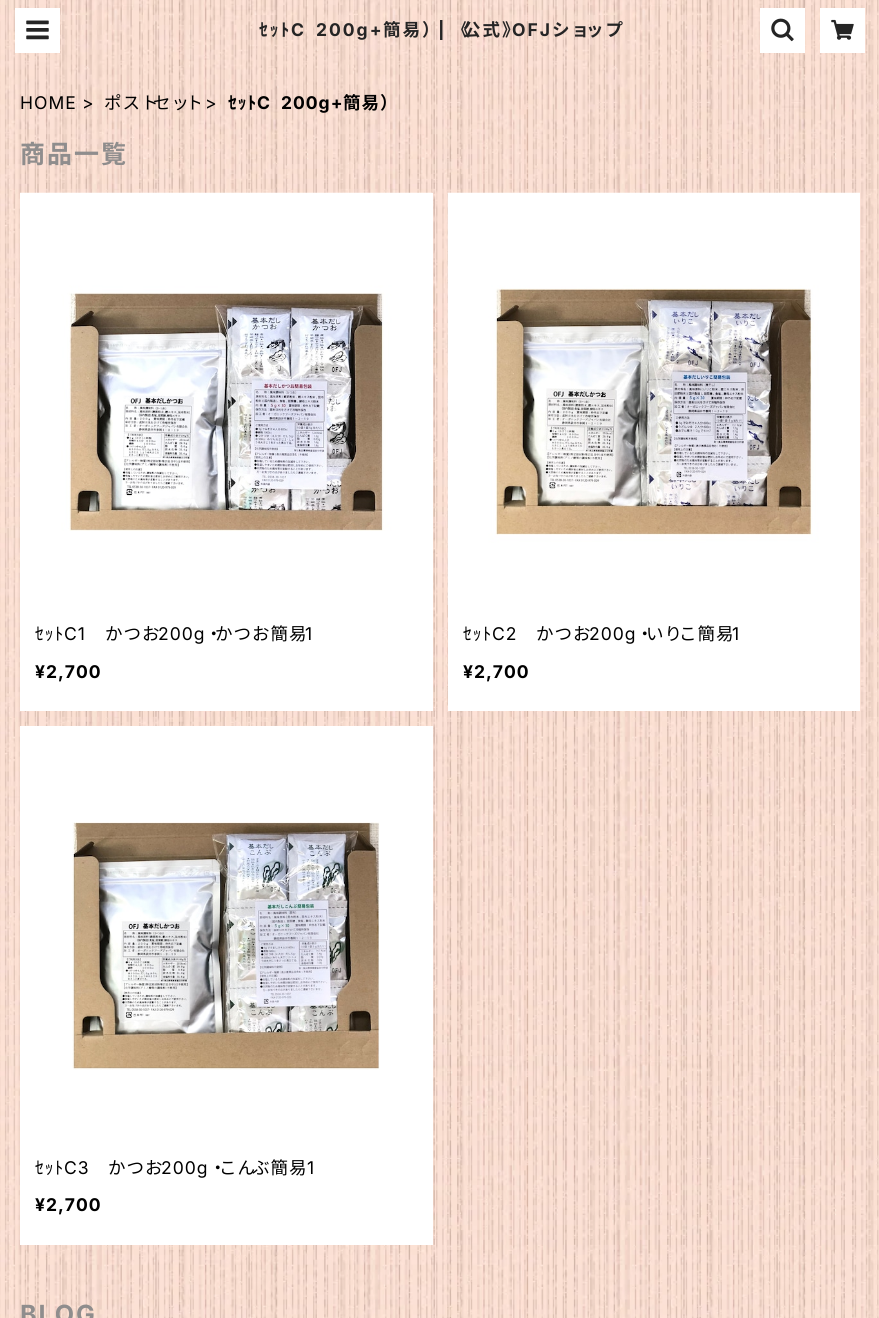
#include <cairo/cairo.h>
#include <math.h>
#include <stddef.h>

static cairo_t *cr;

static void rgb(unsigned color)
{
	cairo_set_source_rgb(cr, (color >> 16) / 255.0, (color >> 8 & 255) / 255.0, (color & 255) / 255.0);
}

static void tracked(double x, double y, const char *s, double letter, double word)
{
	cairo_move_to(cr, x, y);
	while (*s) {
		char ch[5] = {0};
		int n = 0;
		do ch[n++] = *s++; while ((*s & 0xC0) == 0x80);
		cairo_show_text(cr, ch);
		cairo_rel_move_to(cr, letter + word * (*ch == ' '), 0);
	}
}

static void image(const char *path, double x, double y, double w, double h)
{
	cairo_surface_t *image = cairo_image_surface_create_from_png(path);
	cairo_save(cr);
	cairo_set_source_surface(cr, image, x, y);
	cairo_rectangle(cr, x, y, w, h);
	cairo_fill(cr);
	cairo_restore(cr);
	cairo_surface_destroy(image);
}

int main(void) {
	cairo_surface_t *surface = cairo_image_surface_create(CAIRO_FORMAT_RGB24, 879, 1318);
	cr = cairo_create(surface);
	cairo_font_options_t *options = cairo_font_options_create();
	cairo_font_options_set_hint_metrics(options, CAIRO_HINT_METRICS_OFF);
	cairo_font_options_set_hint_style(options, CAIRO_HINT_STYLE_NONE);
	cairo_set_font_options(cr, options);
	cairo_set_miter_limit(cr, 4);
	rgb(0xffffff);
	cairo_paint(cr);
	image("img/1.png", 0, 0, 879, 1318);
	rgb(0xffffff);
	cairo_rectangle(cr, 15, 8, 45, 45);
	cairo_fill(cr);
	image("img/2.png", 26, 20, 23, 20);
	cairo_rectangle(cr, 760, 8, 45, 45);
	cairo_fill(cr);
	image("img/3.png", 771, 18, 23, 24);
	cairo_rectangle(cr, 820, 8, 45, 45);
	cairo_fill(cr);
	image("img/4.png", 831, 19, 23, 21);
	cairo_rectangle(cr, 20, 193, 413, 518);
	cairo_fill(cr);
	image("img/5.png", 20, 192, 412, 339);
	cairo_rectangle(cr, 448, 605, 412, 106);
	cairo_fill(cr);
	image("img/6.png", 447, 192, 413, 413);
	cairo_rectangle(cr, 20, 726, 413, 519);
	cairo_fill(cr);
	image("img/7.png", 72, 822, 308, 248);
	cairo_select_font_face(cr, "Noto Sans JP", CAIRO_FONT_SLANT_NORMAL, CAIRO_FONT_WEIGHT_BOLD);
	cairo_set_font_size(cr, 17.5);
	rgb(0x252525);
	tracked(259, 36, "ｾｯﾄ", 2, 0);
	cairo_select_font_face(cr, "Inter", CAIRO_FONT_SLANT_NORMAL, CAIRO_FONT_WEIGHT_BOLD);
	tracked(291, 36, "C", 2, 0);
	tracked(316, 36, "200g+", 2, 0);
	cairo_select_font_face(cr, "Noto Sans JP", CAIRO_FONT_SLANT_NORMAL, CAIRO_FONT_WEIGHT_BOLD);
	tracked(383, 36, "簡易）", 2, 0);
	cairo_save(cr);
	cairo_rectangle(cr, 259, 20, 362, 20);
	cairo_clip(cr);
	cairo_select_font_face(cr, "Inter", CAIRO_FONT_SLANT_NORMAL, CAIRO_FONT_WEIGHT_BOLD);
	tracked(438, 36, "|", 2, 0);
	cairo_restore(cr);
	tracked(452, 36, "《", 2, 0);
	tracked(463, 36, "公式》", 2, 0);
	cairo_select_font_face(cr, "Inter", CAIRO_FONT_SLANT_NORMAL, CAIRO_FONT_WEIGHT_BOLD);
	tracked(512, 36, "OFJ", 2, 0);
	cairo_select_font_face(cr, "Noto Sans JP", CAIRO_FONT_SLANT_NORMAL, CAIRO_FONT_WEIGHT_BOLD);
	tracked(552, 36, "ショ", 2, 0);
	tracked(586, 36, "ップ", 2, 0);
	cairo_select_font_face(cr, "Inter", CAIRO_FONT_SLANT_NORMAL, CAIRO_FONT_WEIGHT_NORMAL);
	rgb(0x000000);
	tracked(20, 109, "HOME", 1, 0);
	tracked(82, 109, ">", 1, 0);
	cairo_save(cr);
	cairo_rectangle(cr, 104, 90, 96, 25);
	cairo_clip(cr);
	cairo_select_font_face(cr, "Noto Sans JP", CAIRO_FONT_SLANT_NORMAL, CAIRO_FONT_WEIGHT_NORMAL);
	tracked(104, 109, "ポスト", 1, 0);
	tracked(153, 109, "セッ", 1, 0);
	tracked(186, 109, "ト", 1, 0);
	cairo_restore(cr);
	tracked(205, 109, ">", 1, 0);
	cairo_select_font_face(cr, "Noto Sans JP", CAIRO_FONT_SLANT_NORMAL, CAIRO_FONT_WEIGHT_BOLD);
	tracked(228, 109, "ｾｯﾄ", 1, 0);
	cairo_select_font_face(cr, "Inter", CAIRO_FONT_SLANT_NORMAL, CAIRO_FONT_WEIGHT_BOLD);
	tracked(257, 109, "C", 1, 0);
	tracked(281, 109, "200g+", 1, 0);
	cairo_select_font_face(cr, "Noto Sans JP", CAIRO_FONT_SLANT_NORMAL, CAIRO_FONT_WEIGHT_BOLD);
	tracked(343, 109, "簡易）", 1, 0);
	cairo_set_font_size(cr, 25);
	rgb(0x8f8d8d);
	tracked(20, 163, "商品一覧", 2, 0);
	cairo_select_font_face(cr, "Noto Sans JP", CAIRO_FONT_SLANT_NORMAL, CAIRO_FONT_WEIGHT_NORMAL);
	cairo_set_font_size(cr, 17.5);
	rgb(0x000000);
	tracked(35, 640, "ｾｯﾄ", 1, 0);
	cairo_select_font_face(cr, "Inter", CAIRO_FONT_SLANT_NORMAL, CAIRO_FONT_WEIGHT_NORMAL);
	tracked(64, 640, "C1", 1, 0);
	cairo_select_font_face(cr, "Noto Sans JP", CAIRO_FONT_SLANT_NORMAL, CAIRO_FONT_WEIGHT_NORMAL);
	tracked(105, 640, "かつお", 1, 0);
	cairo_select_font_face(cr, "Inter", CAIRO_FONT_SLANT_NORMAL, CAIRO_FONT_WEIGHT_NORMAL);
	tracked(158, 640, "200g", 1, 0);
	cairo_select_font_face(cr, "Noto Sans JP", CAIRO_FONT_SLANT_NORMAL, CAIRO_FONT_WEIGHT_NORMAL);
	tracked(205, 640, "・", 1, 0);
	tracked(215, 640, "かつお簡易", 1, 0);
	cairo_select_font_face(cr, "Inter", CAIRO_FONT_SLANT_NORMAL, CAIRO_FONT_WEIGHT_NORMAL);
	tracked(305, 640, "1", 1, 0);
	cairo_select_font_face(cr, "Inter", CAIRO_FONT_SLANT_NORMAL, CAIRO_FONT_WEIGHT_BOLD);
	tracked(35, 678, "¥2,700", 1, 0);
	cairo_select_font_face(cr, "Noto Sans JP", CAIRO_FONT_SLANT_NORMAL, CAIRO_FONT_WEIGHT_NORMAL);
	tracked(463, 640, "ｾｯﾄ", 1, 0);
	cairo_select_font_face(cr, "Inter", CAIRO_FONT_SLANT_NORMAL, CAIRO_FONT_WEIGHT_NORMAL);
	tracked(492, 640, "C2", 1, 0);
	cairo_select_font_face(cr, "Noto Sans JP", CAIRO_FONT_SLANT_NORMAL, CAIRO_FONT_WEIGHT_NORMAL);
	tracked(536, 640, "かつお", 1, 0);
	cairo_select_font_face(cr, "Inter", CAIRO_FONT_SLANT_NORMAL, CAIRO_FONT_WEIGHT_NORMAL);
	tracked(589, 640, "200g", 1, 0);
	cairo_select_font_face(cr, "Noto Sans JP", CAIRO_FONT_SLANT_NORMAL, CAIRO_FONT_WEIGHT_NORMAL);
	tracked(636, 640, "・", 1, 0);
	tracked(646, 640, "いり", 1, 0);
	tracked(679, 640, "こ簡易", 1, 0);
	cairo_select_font_face(cr, "Inter", CAIRO_FONT_SLANT_NORMAL, CAIRO_FONT_WEIGHT_NORMAL);
	tracked(732, 640, "1", 1, 0);
	cairo_select_font_face(cr, "Inter", CAIRO_FONT_SLANT_NORMAL, CAIRO_FONT_WEIGHT_BOLD);
	tracked(463, 678, "¥2,700", 1, 0);
	cairo_select_font_face(cr, "Noto Sans JP", CAIRO_FONT_SLANT_NORMAL, CAIRO_FONT_WEIGHT_NORMAL);
	tracked(35, 1174, "ｾｯﾄ", 1, 0);
	cairo_select_font_face(cr, "Inter", CAIRO_FONT_SLANT_NORMAL, CAIRO_FONT_WEIGHT_NORMAL);
	tracked(64, 1174, "C3", 1, 0);
	cairo_select_font_face(cr, "Noto Sans JP", CAIRO_FONT_SLANT_NORMAL, CAIRO_FONT_WEIGHT_NORMAL);
	tracked(108, 1174, "かつお", 1, 0);
	cairo_select_font_face(cr, "Inter", CAIRO_FONT_SLANT_NORMAL, CAIRO_FONT_WEIGHT_NORMAL);
	tracked(161, 1174, "200g", 1, 0);
	cairo_select_font_face(cr, "Noto Sans JP", CAIRO_FONT_SLANT_NORMAL, CAIRO_FONT_WEIGHT_NORMAL);
	tracked(209, 1174, "・", 1, 0);
	tracked(219, 1174, "こん", 1, 0);
	tracked(252, 1174, "ぶ簡易", 1, 0);
	cairo_select_font_face(cr, "Inter", CAIRO_FONT_SLANT_NORMAL, CAIRO_FONT_WEIGHT_NORMAL);
	tracked(307, 1174, "1", 1, 0);
	cairo_select_font_face(cr, "Inter", CAIRO_FONT_SLANT_NORMAL, CAIRO_FONT_WEIGHT_BOLD);
	tracked(35, 1211, "¥2,700", 1, 0);
	cairo_set_font_size(cr, 25);
	rgb(0x8f8d8d);
	tracked(20, 1323, "BLOG", 2, 0);
	cairo_surface_write_to_png(surface, "page.png");
	cairo_font_options_destroy(options);
	cairo_destroy(cr);
	cairo_surface_destroy(surface);
	return 0;
}
